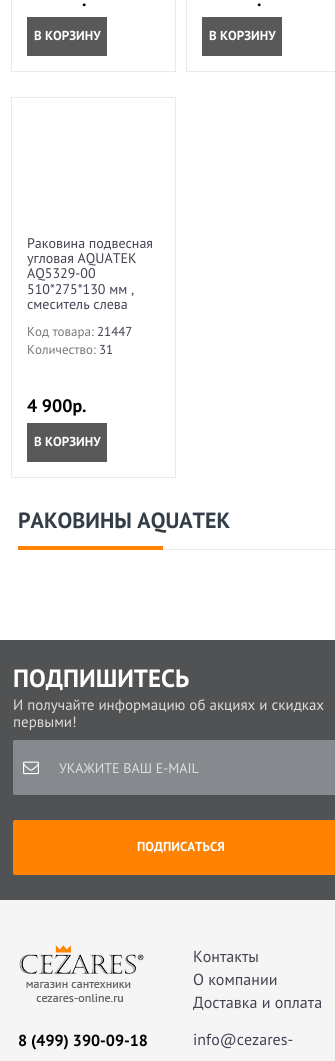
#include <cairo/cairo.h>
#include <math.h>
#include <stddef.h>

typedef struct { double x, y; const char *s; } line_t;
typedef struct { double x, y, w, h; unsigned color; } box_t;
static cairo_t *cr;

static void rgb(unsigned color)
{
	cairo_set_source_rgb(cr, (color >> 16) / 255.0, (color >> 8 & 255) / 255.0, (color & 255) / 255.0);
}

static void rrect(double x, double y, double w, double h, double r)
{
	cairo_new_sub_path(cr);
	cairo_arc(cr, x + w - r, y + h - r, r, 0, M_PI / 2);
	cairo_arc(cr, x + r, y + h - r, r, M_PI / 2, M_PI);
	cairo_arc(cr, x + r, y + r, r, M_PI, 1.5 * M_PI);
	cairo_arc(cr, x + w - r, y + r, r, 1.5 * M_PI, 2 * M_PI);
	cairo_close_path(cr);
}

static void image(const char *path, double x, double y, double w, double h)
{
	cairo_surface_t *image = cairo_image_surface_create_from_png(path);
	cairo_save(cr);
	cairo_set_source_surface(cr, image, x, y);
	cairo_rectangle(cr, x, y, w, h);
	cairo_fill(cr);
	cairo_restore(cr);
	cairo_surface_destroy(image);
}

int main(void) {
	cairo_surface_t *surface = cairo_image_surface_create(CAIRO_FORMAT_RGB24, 335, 1061);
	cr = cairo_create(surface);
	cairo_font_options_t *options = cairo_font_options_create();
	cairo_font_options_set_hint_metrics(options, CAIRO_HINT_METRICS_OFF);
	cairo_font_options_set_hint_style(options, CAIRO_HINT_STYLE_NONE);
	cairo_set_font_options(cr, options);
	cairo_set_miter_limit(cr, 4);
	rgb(0xffffff);
	cairo_paint(cr);
	cairo_rectangle(cr, 11.5, -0.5, 164, 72);
	rgb(0xeaeaea);
	cairo_set_line_width(cr, 1);
	cairo_stroke(cr);
	rgb(0x595959);
	cairo_rectangle(cr, 27, 17, 80, 39);
	cairo_fill(cr);
	cairo_rectangle(cr, 186.5, -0.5, 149, 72);
	rgb(0xeaeaea);
	cairo_stroke(cr);
	rgb(0x595959);
	cairo_rectangle(cr, 202, 17, 80, 39);
	cairo_fill(cr);
	cairo_rectangle(cr, 11.5, 97.5, 164, 380);
	rgb(0xeaeaea);
	cairo_stroke(cr);
	{
		static const box_t items[] = {
			{27, 423, 80, 39, 0x595959},
			{163, 549, 172, 1, 0xeaeaea},
			{18, 546, 145, 4, 0xff8200},
			{0, 640, 335, 260, 0x515253},
		};
		for (size_t i = 0; i < sizeof items / sizeof *items; i++) {
			rgb(items[i].color);
			cairo_rectangle(cr, items[i].x, items[i].y, items[i].w, items[i].h);
			cairo_fill(cr);
		}
	}
	rgb(0x86898e);
	rrect(13.5, 740.5, 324, 54, 1.5);
	cairo_fill_preserve(cr);
	cairo_stroke(cr);
	image("img/1.png", 23, 761, 16, 14);
	rgb(0xff8200);
	rrect(13.5, 820.5, 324, 54, 1.5);
	cairo_fill_preserve(cr);
	cairo_stroke(cr);
	rgb(0xf5f5f5);
	cairo_rectangle(cr, 0, 900, 335, 161);
	cairo_fill(cr);
	image("img/2.png", 19, 945, 125, 57);
	cairo_select_font_face(cr, "PT Sans", CAIRO_FONT_SLANT_NORMAL, CAIRO_FONT_WEIGHT_BOLD);
	cairo_set_font_size(cr, 18);
	rgb(0x000000);
	cairo_move_to(cr, 82, 6);
	cairo_show_text(cr, ".");
	cairo_set_font_size(cr, 13);
	rgb(0xffffff);
	cairo_move_to(cr, 34, 40);
	cairo_show_text(cr, "В КОРЗИНУ");
	cairo_set_font_size(cr, 18);
	rgb(0x000000);
	cairo_move_to(cr, 257, 6);
	cairo_show_text(cr, ".");
	cairo_set_font_size(cr, 13);
	rgb(0xffffff);
	cairo_move_to(cr, 209, 40);
	cairo_show_text(cr, "В КОРЗИНУ");
	cairo_select_font_face(cr, "PT Sans", CAIRO_FONT_SLANT_NORMAL, CAIRO_FONT_WEIGHT_NORMAL);
	cairo_set_font_size(cr, 14);
	rgb(0x424352);
	{
		static const line_t items[] = {
			{27, 248, "Раковина подвесная"},
			{27, 263, "угловая AQUATEK"},
			{27, 278, "AQ5329-00"},
			{27, 294, "510*275*130 мм ,"},
			{27, 309, "смеситель слева"},
		};
		for (size_t i = 0; i < sizeof items / sizeof *items; i++) {
			cairo_move_to(cr, items[i].x, items[i].y);
			cairo_show_text(cr, items[i].s);
		}
	}
	cairo_set_font_size(cr, 13);
	rgb(0x777777);
	cairo_move_to(cr, 27, 336);
	cairo_show_text(cr, "Код товара:");
	rgb(0x424352);
	cairo_move_to(cr, 97, 336);
	cairo_show_text(cr, "21447");
	rgb(0x777777);
	cairo_move_to(cr, 27, 354);
	cairo_show_text(cr, "Количество:");
	rgb(0x424352);
	cairo_move_to(cr, 99, 354);
	cairo_show_text(cr, "31");
	cairo_select_font_face(cr, "PT Sans", CAIRO_FONT_SLANT_NORMAL, CAIRO_FONT_WEIGHT_BOLD);
	cairo_set_font_size(cr, 18);
	rgb(0x000000);
	cairo_move_to(cr, 27, 412);
	cairo_show_text(cr, "4 900р.");
	cairo_set_font_size(cr, 13);
	rgb(0xffffff);
	cairo_move_to(cr, 34, 446);
	cairo_show_text(cr, "В КОРЗИНУ");
	cairo_set_font_size(cr, 22);
	rgb(0x333e48);
	cairo_move_to(cr, 18, 528);
	cairo_show_text(cr, "РАКОВИНЫ AQUATEK");
	cairo_set_font_size(cr, 25);
	rgb(0xffffff);
	cairo_move_to(cr, 13, 687);
	cairo_show_text(cr, "ПОДПИШИТЕСЬ");
	cairo_select_font_face(cr, "PT Sans", CAIRO_FONT_SLANT_NORMAL, CAIRO_FONT_WEIGHT_NORMAL);
	cairo_set_font_size(cr, 15);
	rgb(0xdddddd);
	cairo_move_to(cr, 13, 710);
	cairo_show_text(cr, "И получайте информацию об акциях и скидках");
	cairo_move_to(cr, 13, 727);
	cairo_show_text(cr, "первыми!");
	cairo_set_font_size(cr, 14);
	cairo_move_to(cr, 59, 773);
	cairo_show_text(cr, "УКАЖИТЕ ВАШ E-MAIL");
	cairo_select_font_face(cr, "PT Sans", CAIRO_FONT_SLANT_NORMAL, CAIRO_FONT_WEIGHT_BOLD);
	cairo_set_font_size(cr, 13);
	rgb(0xffffff);
	cairo_move_to(cr, 137, 851);
	cairo_show_text(cr, "ПОДПИСАТЬСЯ");
	cairo_select_font_face(cr, "PT Sans", CAIRO_FONT_SLANT_NORMAL, CAIRO_FONT_WEIGHT_NORMAL);
	cairo_set_font_size(cr, 16);
	rgb(0x424352);
	{
		static const line_t items[] = {
			{193, 962, "Контакты"},
			{193, 985, "О компании"},
			{193, 1008, "Доставка и оплата"},
		};
		for (size_t i = 0; i < sizeof items / sizeof *items; i++) {
			cairo_move_to(cr, items[i].x, items[i].y);
			cairo_show_text(cr, items[i].s);
		}
	}
	cairo_select_font_face(cr, "PT Sans", CAIRO_FONT_SLANT_NORMAL, CAIRO_FONT_WEIGHT_BOLD);
	rgb(0x000000);
	cairo_move_to(cr, 18, 1046);
	cairo_show_text(cr, "8 (499) 390-09-18");
	cairo_select_font_face(cr, "PT Sans", CAIRO_FONT_SLANT_NORMAL, CAIRO_FONT_WEIGHT_NORMAL);
	rgb(0x424352);
	cairo_move_to(cr, 193, 1045);
	cairo_show_text(cr, "info@cezares-");
	cairo_surface_write_to_png(surface, "page.png");
	cairo_font_options_destroy(options);
	cairo_destroy(cr);
	cairo_surface_destroy(surface);
	return 0;
}
